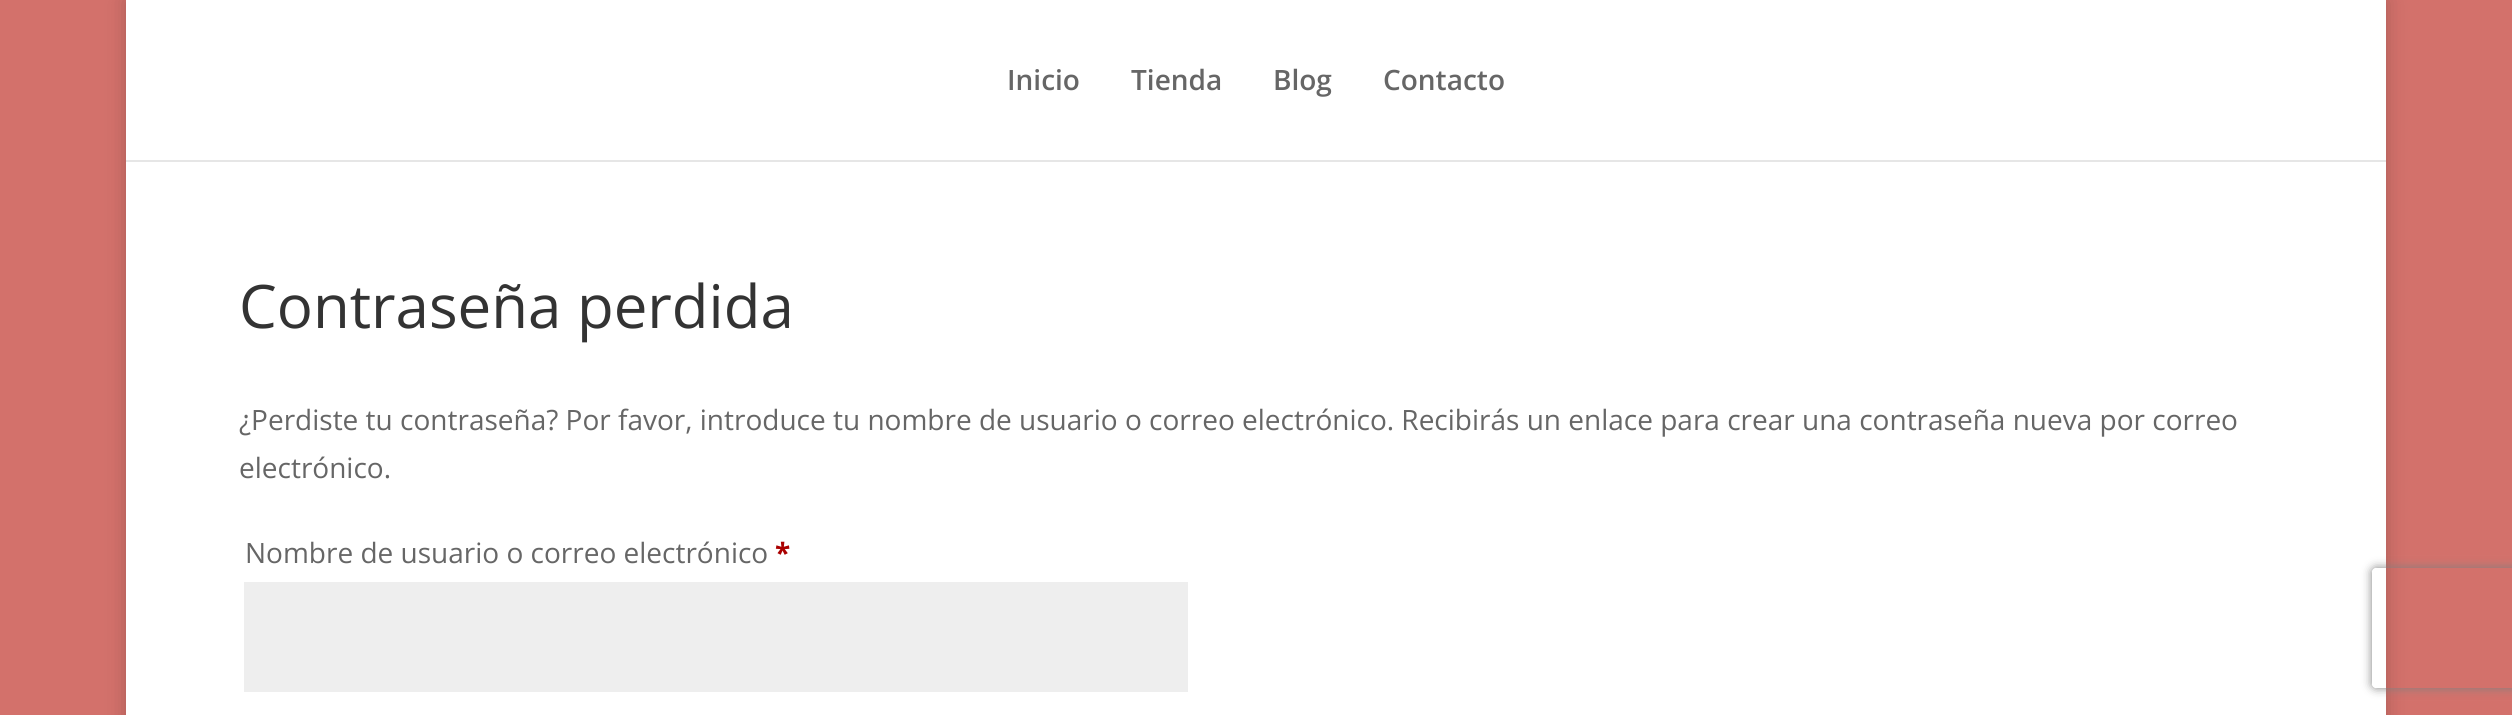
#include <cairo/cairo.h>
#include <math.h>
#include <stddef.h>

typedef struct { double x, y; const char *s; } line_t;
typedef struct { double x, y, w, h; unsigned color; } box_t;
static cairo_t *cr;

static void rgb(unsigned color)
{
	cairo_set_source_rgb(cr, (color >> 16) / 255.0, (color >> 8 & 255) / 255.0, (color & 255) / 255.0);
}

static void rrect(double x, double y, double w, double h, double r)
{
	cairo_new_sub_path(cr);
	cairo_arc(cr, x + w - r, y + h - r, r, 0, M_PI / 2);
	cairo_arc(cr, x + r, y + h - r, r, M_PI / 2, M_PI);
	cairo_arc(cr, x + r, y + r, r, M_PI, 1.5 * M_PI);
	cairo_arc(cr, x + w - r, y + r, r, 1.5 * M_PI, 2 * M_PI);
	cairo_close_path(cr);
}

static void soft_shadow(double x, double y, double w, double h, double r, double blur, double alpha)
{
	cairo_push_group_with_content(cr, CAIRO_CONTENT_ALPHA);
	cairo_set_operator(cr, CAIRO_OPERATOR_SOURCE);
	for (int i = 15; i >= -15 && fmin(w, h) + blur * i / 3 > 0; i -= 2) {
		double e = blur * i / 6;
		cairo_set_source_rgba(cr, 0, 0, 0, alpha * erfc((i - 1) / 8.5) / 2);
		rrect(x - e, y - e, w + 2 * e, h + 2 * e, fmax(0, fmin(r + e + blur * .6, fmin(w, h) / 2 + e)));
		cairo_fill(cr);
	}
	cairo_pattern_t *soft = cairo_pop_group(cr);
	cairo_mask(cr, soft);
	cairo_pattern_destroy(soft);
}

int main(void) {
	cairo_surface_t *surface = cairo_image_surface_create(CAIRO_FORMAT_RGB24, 2512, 715);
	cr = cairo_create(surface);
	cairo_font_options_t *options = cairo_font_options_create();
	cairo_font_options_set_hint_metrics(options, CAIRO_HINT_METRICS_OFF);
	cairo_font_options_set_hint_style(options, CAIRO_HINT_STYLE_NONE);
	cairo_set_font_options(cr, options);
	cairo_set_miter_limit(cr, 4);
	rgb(0xd3716b);
	cairo_paint(cr);
	rgb(0x000000);
	soft_shadow(126, 0, 2260, 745, 0, 10, 0.2);
	{
		static const box_t items[] = {
			{126, 160, 2260, 2, 0xe6e6e6},
			{126, 0, 2260, 160, 0xffffff},
			{126, 162, 2260, 553, 0xffffff},
			{244, 582, 944, 110, 0xeeeeee},
		};
		for (size_t i = 0; i < sizeof items / sizeof *items; i++) {
			rgb(items[i].color);
			cairo_rectangle(cr, items[i].x, items[i].y, items[i].w, items[i].h);
			cairo_fill(cr);
		}
	}
	cairo_save(cr);
	cairo_set_fill_rule(cr, CAIRO_FILL_RULE_EVEN_ODD);
	cairo_new_path(cr);
	cairo_move_to(cr, 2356, 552);
	cairo_line_to(cr, 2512, 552);
	cairo_line_to(cr, 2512, 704);
	cairo_line_to(cr, 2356, 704);
	cairo_close_path(cr);
	cairo_move_to(cr, 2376, 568);
	cairo_line_to(cr, 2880, 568);
	cairo_curve_to(cr, 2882, 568, 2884, 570, 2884, 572);
	cairo_line_to(cr, 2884, 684);
	cairo_curve_to(cr, 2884, 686, 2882, 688, 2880, 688);
	cairo_line_to(cr, 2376, 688);
	cairo_curve_to(cr, 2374, 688, 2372, 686, 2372, 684);
	cairo_line_to(cr, 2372, 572);
	cairo_curve_to(cr, 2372, 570, 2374, 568, 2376, 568);
	cairo_close_path(cr);
	cairo_clip(cr);
	rgb(0x808080);
	soft_shadow(2372, 568, 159, 120, 4, 5, 1);
	cairo_restore(cr);
	cairo_select_font_face(cr, "Open Sans SemiBold", CAIRO_FONT_SLANT_NORMAL, CAIRO_FONT_WEIGHT_NORMAL);
	cairo_set_font_size(cr, 28);
	rgb(0x666666);
	{
		static const line_t items[] = {
			{1007, 90, "Inicio"},
			{1131, 90, "Tienda"},
			{1273, 90, "Blog"},
			{1383, 90, "Contacto"},
		};
		for (size_t i = 0; i < sizeof items / sizeof *items; i++) {
			cairo_move_to(cr, items[i].x, items[i].y);
			cairo_show_text(cr, items[i].s);
		}
	}
	cairo_select_font_face(cr, "Open Sans", CAIRO_FONT_SLANT_NORMAL, CAIRO_FONT_WEIGHT_NORMAL);
	cairo_set_font_size(cr, 60);
	rgb(0x333333);
	cairo_move_to(cr, 239, 328);
	cairo_show_text(cr, "Contraseña perdida");
	cairo_set_font_size(cr, 28);
	rgb(0x666666);
	{
		static const line_t items[] = {
			{239, 430, "¿Perdiste tu contraseña? Por favor, introduce tu nombre de usuario o correo electrónico. Recibirás un enlace para crear una contraseña nueva por correo"},
			{239, 478, "electrónico."},
			{245, 563, "Nombre de usuario o correo electrónico"},
		};
		for (size_t i = 0; i < sizeof items / sizeof *items; i++) {
			cairo_move_to(cr, items[i].x, items[i].y);
			cairo_show_text(cr, items[i].s);
		}
	}
	cairo_select_font_face(cr, "Open Sans", CAIRO_FONT_SLANT_NORMAL, CAIRO_FONT_WEIGHT_BOLD);
	rgb(0xaa0000);
	cairo_move_to(cr, 775, 563);
	cairo_show_text(cr, "*");
	cairo_surface_write_to_png(surface, "page.png");
	cairo_font_options_destroy(options);
	cairo_destroy(cr);
	cairo_surface_destroy(surface);
	return 0;
}
